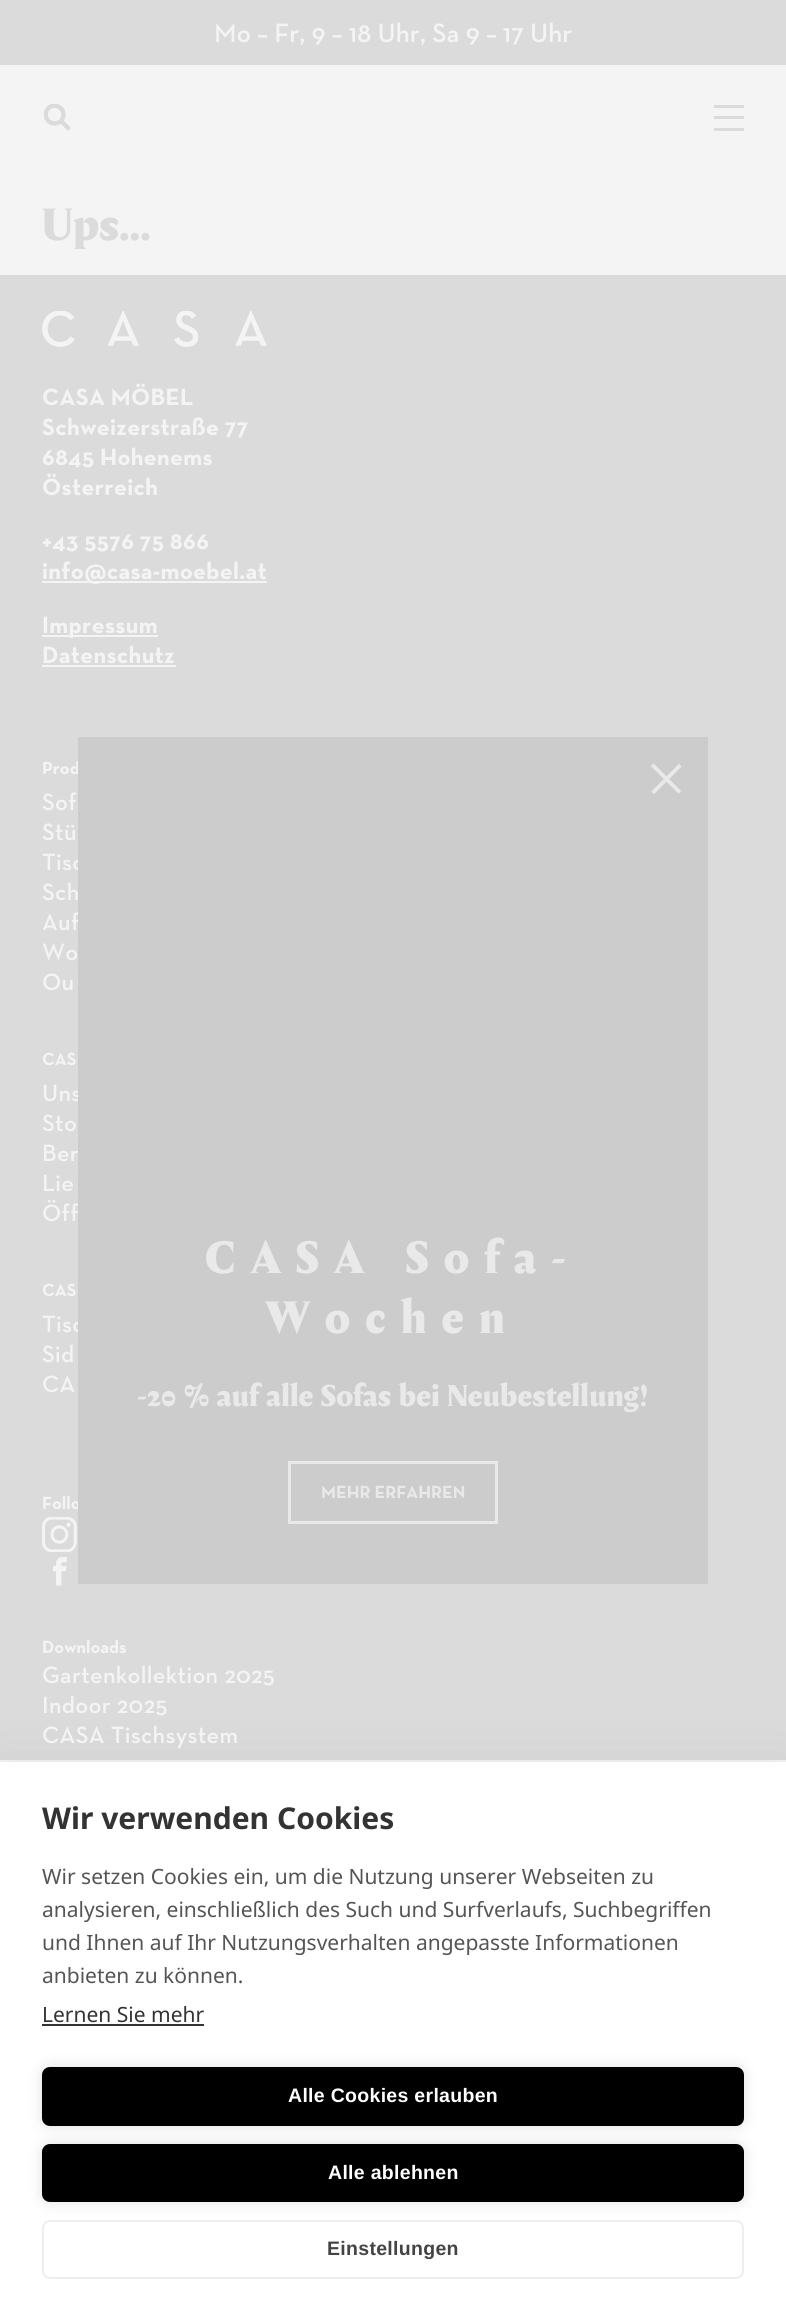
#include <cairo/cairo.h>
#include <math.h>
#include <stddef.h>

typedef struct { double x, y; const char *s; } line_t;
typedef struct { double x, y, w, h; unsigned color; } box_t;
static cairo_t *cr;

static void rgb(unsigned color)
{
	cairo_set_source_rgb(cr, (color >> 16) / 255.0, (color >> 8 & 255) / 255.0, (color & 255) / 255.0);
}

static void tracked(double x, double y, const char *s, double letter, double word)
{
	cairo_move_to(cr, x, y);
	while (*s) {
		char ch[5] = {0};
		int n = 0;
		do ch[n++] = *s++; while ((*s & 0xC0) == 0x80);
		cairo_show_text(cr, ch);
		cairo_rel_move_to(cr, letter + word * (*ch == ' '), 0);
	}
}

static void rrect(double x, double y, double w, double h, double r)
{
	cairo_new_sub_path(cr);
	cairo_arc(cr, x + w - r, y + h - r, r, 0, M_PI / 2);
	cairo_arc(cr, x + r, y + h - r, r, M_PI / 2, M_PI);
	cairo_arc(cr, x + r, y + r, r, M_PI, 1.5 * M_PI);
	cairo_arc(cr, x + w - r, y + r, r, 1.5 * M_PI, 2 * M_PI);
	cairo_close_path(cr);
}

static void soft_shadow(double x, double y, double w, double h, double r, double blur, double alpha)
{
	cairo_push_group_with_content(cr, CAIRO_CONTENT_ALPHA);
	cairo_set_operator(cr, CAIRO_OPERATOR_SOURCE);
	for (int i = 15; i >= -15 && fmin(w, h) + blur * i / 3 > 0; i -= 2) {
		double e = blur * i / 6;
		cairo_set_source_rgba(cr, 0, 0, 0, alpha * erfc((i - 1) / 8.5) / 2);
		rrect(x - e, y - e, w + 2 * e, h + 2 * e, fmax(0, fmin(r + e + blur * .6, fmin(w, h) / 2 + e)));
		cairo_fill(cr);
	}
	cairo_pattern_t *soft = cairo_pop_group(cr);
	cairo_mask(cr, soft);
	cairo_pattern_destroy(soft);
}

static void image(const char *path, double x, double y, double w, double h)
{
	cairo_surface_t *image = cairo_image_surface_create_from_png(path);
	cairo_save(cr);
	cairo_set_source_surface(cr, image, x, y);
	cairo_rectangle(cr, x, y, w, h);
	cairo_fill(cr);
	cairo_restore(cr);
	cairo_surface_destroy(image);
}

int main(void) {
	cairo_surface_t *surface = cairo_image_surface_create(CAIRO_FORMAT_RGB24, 786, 2320);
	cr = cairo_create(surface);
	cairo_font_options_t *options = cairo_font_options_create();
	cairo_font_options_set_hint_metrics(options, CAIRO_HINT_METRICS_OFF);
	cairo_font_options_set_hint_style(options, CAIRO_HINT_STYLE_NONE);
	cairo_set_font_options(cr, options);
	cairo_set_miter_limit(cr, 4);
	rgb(0xf4f4f4);
	cairo_paint(cr);
	rgb(0xdbdbdb);
	cairo_rectangle(cr, 0, 0, 786, 65);
	cairo_fill(cr);
	image("img/1.png", 44, 104, 27, 27);
	{
		static const box_t items[] = {
			{714, 116, 30, 3, 0xdbdbdb},
			{714, 105, 30, 3, 0xdbdbdb},
			{714, 128, 30, 3, 0xdbdbdb},
			{0, 275, 786, 1485, 0xdbdbdb},
		};
		for (size_t i = 0; i < sizeof items / sizeof *items; i++) {
			rgb(items[i].color);
			cairo_rectangle(cr, items[i].x, items[i].y, items[i].w, items[i].h);
			cairo_fill(cr);
		}
	}
	image("img/2.png", 42, 311, 225, 36);
	{
		static const box_t items[] = {
			{42, 581, 225, 2, 0xf4f4f4},
			{42, 635, 116, 2, 0xf4f4f4},
			{42, 665, 134, 2, 0xf4f4f4},
		};
		for (size_t i = 0; i < sizeof items / sizeof *items; i++) {
			rgb(items[i].color);
			cairo_rectangle(cr, items[i].x, items[i].y, items[i].w, items[i].h);
			cairo_fill(cr);
		}
	}
	image("img/3.png", 42, 1517, 35, 35);
	image("img/4.png", 53, 1557, 14, 29);
	rgb(0x000000);
	soft_shadow(0, 1775, 786, 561, 0, 30, 0.1);
	rgb(0xffffff);
	cairo_rectangle(cr, 0, 1762, 786, 558);
	cairo_fill(cr);
	rgb(0x333333);
	cairo_rectangle(cr, 42, 2024, 162, 2);
	cairo_fill(cr);
	rgb(0x000000);
	soft_shadow(42, 2067, 702, 59, 8, 7.5, 0.12);
	rgb(0x000000);
	rrect(42, 2067, 702, 59, 8);
	cairo_fill(cr);
	rgb(0x000000);
	soft_shadow(42, 2144, 702, 58, 8, 7.5, 0.12);
	rgb(0x000000);
	rrect(42, 2144, 702, 58, 8);
	cairo_fill(cr);
	rrect(43, 2221, 700, 57, 7);
	rgb(0xeeeeee);
	cairo_stroke(cr);
	cairo_select_font_face(cr, "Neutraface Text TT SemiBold", CAIRO_FONT_SLANT_NORMAL, CAIRO_FONT_WEIGHT_NORMAL);
	cairo_set_font_size(cr, 27);
	rgb(0xf4f4f4);
	cairo_move_to(cr, 214, 42);
	cairo_show_text(cr, "Mo – Fr, 9 – 18 Uhr, Sa 9 – 17 Uhr");
	cairo_select_font_face(cr, "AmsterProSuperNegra", CAIRO_FONT_SLANT_NORMAL, CAIRO_FONT_WEIGHT_NORMAL);
	cairo_set_font_size(cr, 45);
	rgb(0xdbdbdb);
	cairo_move_to(cr, 42, 240);
	cairo_show_text(cr, "Ups...");
	cairo_select_font_face(cr, "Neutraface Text", CAIRO_FONT_SLANT_NORMAL, CAIRO_FONT_WEIGHT_BOLD);
	cairo_set_font_size(cr, 24);
	rgb(0xf4f4f4);
	{
		static const line_t items[] = {
			{42, 405, "CASA MÖBEL"},
			{42, 435, "Schweizerstraße 77"},
			{42, 465, "6845 Hohenems"},
			{42, 495, "Österreich"},
			{42, 549, "+43 5576 75 866"},
			{42, 579, "info@casa-moebel.at"},
			{42, 633, "Impressum"},
			{42, 663, "Datenschutz"},
		};
		for (size_t i = 0; i < sizeof items / sizeof *items; i++) {
			tracked(items[i].x, items[i].y, items[i].s, 0.3, 0);
		}
	}
	cairo_set_font_size(cr, 18);
	cairo_move_to(cr, 42, 774);
	cairo_show_text(cr, "Prod");
	cairo_select_font_face(cr, "Neutraface Text TT SemiBold", CAIRO_FONT_SLANT_NORMAL, CAIRO_FONT_WEIGHT_NORMAL);
	cairo_set_font_size(cr, 24);
	{
		static const line_t items[] = {
			{42, 810, "Sof"},
			{42, 840, "Stü"},
			{42, 870, "Tisc"},
			{42, 900, "Sch"},
			{42, 930, "Auf"},
			{42, 960, "Wo"},
			{42, 990, "Ou"},
		};
		for (size_t i = 0; i < sizeof items / sizeof *items; i++) {
			tracked(items[i].x, items[i].y, items[i].s, 0.3, 0);
		}
	}
	cairo_select_font_face(cr, "Neutraface Text", CAIRO_FONT_SLANT_NORMAL, CAIRO_FONT_WEIGHT_BOLD);
	cairo_set_font_size(cr, 18);
	cairo_move_to(cr, 42, 1065);
	cairo_show_text(cr, "CAS");
	cairo_select_font_face(cr, "Neutraface Text TT SemiBold", CAIRO_FONT_SLANT_NORMAL, CAIRO_FONT_WEIGHT_NORMAL);
	cairo_set_font_size(cr, 24);
	{
		static const line_t items[] = {
			{42, 1101, "Uns"},
			{42, 1131, "Sto"},
			{42, 1161, "Ber"},
			{42, 1191, "Lie"},
			{42, 1221, "Öff"},
		};
		for (size_t i = 0; i < sizeof items / sizeof *items; i++) {
			tracked(items[i].x, items[i].y, items[i].s, 0.3, 0);
		}
	}
	cairo_select_font_face(cr, "Neutraface Text", CAIRO_FONT_SLANT_NORMAL, CAIRO_FONT_WEIGHT_BOLD);
	cairo_set_font_size(cr, 18);
	cairo_move_to(cr, 42, 1296);
	cairo_show_text(cr, "CAS");
	cairo_select_font_face(cr, "Neutraface Text TT SemiBold", CAIRO_FONT_SLANT_NORMAL, CAIRO_FONT_WEIGHT_NORMAL);
	cairo_set_font_size(cr, 24);
	{
		static const line_t items[] = {
			{42, 1332, "Tisc"},
			{42, 1362, "Sid"},
			{42, 1392, "CA"},
		};
		for (size_t i = 0; i < sizeof items / sizeof *items; i++) {
			tracked(items[i].x, items[i].y, items[i].s, 0.3, 0);
		}
	}
	cairo_select_font_face(cr, "Neutraface Text", CAIRO_FONT_SLANT_NORMAL, CAIRO_FONT_WEIGHT_BOLD);
	cairo_set_font_size(cr, 18);
	cairo_move_to(cr, 42, 1509);
	cairo_show_text(cr, "Follo");
	cairo_move_to(cr, 42, 1653);
	cairo_show_text(cr, "Downloads");
	cairo_select_font_face(cr, "Neutraface Text TT SemiBold", CAIRO_FONT_SLANT_NORMAL, CAIRO_FONT_WEIGHT_NORMAL);
	cairo_set_font_size(cr, 24);
	{
		static const line_t items[] = {
			{42, 1683, "Gartenkollektion 2025"},
			{42, 1713, "Indoor 2025"},
			{42, 1743, "CASA Tischsystem"},
		};
		for (size_t i = 0; i < sizeof items / sizeof *items; i++) {
			tracked(items[i].x, items[i].y, items[i].s, 0.3, 0);
		}
	}
	rgb(0xcccccc);
	cairo_rectangle(cr, 78, 737, 630, 847);
	cairo_fill(cr);
	cairo_new_path(cr);
	cairo_move_to(cr, 654, 791.5);
	cairo_line_to(cr, 679, 766.5);
	cairo_move_to(cr, 678.5, 791);
	cairo_line_to(cr, 653.5, 766);
	rgb(0xe9e9e9);
	cairo_set_line_width(cr, 3.8);
	cairo_set_line_cap(cr, CAIRO_LINE_CAP_SQUARE);
	cairo_stroke(cr);
	cairo_select_font_face(cr, "AmsterProSuperNegra", CAIRO_FONT_SLANT_NORMAL, CAIRO_FONT_WEIGHT_NORMAL);
	cairo_set_font_size(cr, 45);
	tracked(205, 1273, "CASA Sofa-", 15, 0);
	tracked(266, 1333, "Wochen", 15, 0);
	cairo_set_font_size(cr, 30);
	cairo_move_to(cr, 137, 1406);
	cairo_show_text(cr, "-20 % auf alle Sofas bei Neubestellung!");
	cairo_rectangle(cr, 289.5, 1462.5, 207, 60);
	cairo_set_line_width(cr, 3);
	cairo_set_line_cap(cr, CAIRO_LINE_CAP_BUTT);
	cairo_stroke(cr);
	cairo_select_font_face(cr, "Neutraface Text", CAIRO_FONT_SLANT_NORMAL, CAIRO_FONT_WEIGHT_BOLD);
	cairo_set_font_size(cr, 18);
	cairo_move_to(cr, 321, 1498);
	cairo_show_text(cr, "MEHR ERFAHREN");
	cairo_select_font_face(cr, "Noto Sans", CAIRO_FONT_SLANT_NORMAL, CAIRO_FONT_WEIGHT_BOLD);
	cairo_set_font_size(cr, 30);
	rgb(0x333333);
	cairo_move_to(cr, 42, 1829);
	cairo_show_text(cr, "Wir verwenden Cookies");
	cairo_select_font_face(cr, "Noto Sans", CAIRO_FONT_SLANT_NORMAL, CAIRO_FONT_WEIGHT_NORMAL);
	cairo_set_font_size(cr, 21);
	rgb(0x555555);
	{
		static const line_t items[] = {
			{42, 1884, "Wir setzen Cookies ein, um die Nutzung unserer Webseiten zu"},
			{42, 1917, "analysieren, einschließlich des Such und Surfverlaufs, Suchbegriffen"},
			{42, 1950, "und Ihnen auf Ihr Nutzungsverhalten angepasste Informationen"},
			{42, 1983, "anbieten zu können."},
		};
		for (size_t i = 0; i < sizeof items / sizeof *items; i++) {
			cairo_move_to(cr, items[i].x, items[i].y);
			cairo_show_text(cr, items[i].s);
		}
	}
	rgb(0x333333);
	cairo_move_to(cr, 42, 2022);
	cairo_show_text(cr, "Lernen Sie mehr");
	cairo_select_font_face(cr, "Liberation Sans", CAIRO_FONT_SLANT_NORMAL, CAIRO_FONT_WEIGHT_BOLD);
	cairo_set_font_size(cr, 19.5);
	rgb(0xffffff);
	tracked(288, 2102, "Alle Cookies erlauben", 0.3, 0);
	tracked(328, 2179, "Alle ablehnen", 0.3, 0);
	rgb(0x444444);
	tracked(327, 2255, "Einstellungen", 0.3, 0);
	cairo_surface_write_to_png(surface, "page.png");
	cairo_font_options_destroy(options);
	cairo_destroy(cr);
	cairo_surface_destroy(surface);
	return 0;
}
